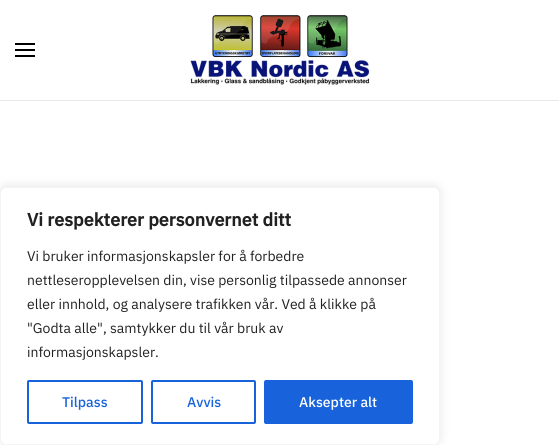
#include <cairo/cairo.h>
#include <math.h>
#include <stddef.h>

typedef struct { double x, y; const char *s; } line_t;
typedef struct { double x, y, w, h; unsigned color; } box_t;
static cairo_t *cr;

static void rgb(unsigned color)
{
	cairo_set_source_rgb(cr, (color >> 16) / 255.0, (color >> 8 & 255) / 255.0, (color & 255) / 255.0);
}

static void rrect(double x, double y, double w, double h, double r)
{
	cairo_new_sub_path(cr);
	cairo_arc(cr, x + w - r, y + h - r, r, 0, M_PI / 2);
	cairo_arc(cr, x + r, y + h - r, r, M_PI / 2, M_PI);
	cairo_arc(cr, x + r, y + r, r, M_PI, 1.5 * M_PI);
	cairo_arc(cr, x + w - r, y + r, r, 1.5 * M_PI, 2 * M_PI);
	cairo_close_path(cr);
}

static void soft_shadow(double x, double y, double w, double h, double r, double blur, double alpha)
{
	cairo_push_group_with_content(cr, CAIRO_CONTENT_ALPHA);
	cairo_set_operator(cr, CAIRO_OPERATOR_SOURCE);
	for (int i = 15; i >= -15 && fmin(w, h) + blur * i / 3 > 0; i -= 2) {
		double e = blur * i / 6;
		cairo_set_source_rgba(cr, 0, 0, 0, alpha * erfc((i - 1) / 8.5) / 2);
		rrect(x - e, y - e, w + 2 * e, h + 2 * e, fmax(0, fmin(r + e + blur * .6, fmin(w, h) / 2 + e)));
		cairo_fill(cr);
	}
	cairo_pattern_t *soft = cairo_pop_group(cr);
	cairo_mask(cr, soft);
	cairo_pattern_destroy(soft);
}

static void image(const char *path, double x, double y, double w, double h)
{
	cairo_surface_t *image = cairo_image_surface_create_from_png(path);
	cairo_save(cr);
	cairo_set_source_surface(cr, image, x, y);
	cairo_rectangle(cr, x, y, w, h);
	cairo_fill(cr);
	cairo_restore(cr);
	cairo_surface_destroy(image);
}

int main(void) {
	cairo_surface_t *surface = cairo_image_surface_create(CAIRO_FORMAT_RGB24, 559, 445);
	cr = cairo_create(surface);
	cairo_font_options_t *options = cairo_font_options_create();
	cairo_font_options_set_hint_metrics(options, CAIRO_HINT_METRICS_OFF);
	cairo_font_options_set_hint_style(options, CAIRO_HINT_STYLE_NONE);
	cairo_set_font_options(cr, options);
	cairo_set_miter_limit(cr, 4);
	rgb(0xffffff);
	cairo_paint(cr);
	{
		static const box_t items[] = {
			{0, 100, 559, 1, 0xe8e8e8},
			{15, 43, 20, 2, 0x000000},
			{15, 49, 20, 2, 0x000000},
			{15, 55, 20, 2, 0x000000},
		};
		for (size_t i = 0; i < sizeof items / sizeof *items; i++) {
			rgb(items[i].color);
			cairo_rectangle(cr, items[i].x, items[i].y, items[i].w, items[i].h);
			cairo_fill(cr);
		}
	}
	image("img/1.png", 190, 15, 180, 70);
	rgb(0xacabab);
	soft_shadow(0, 186, 440, 258, 6, 5, 0.3);
	rgb(0xffffff);
	rrect(0.5, 187.5, 439, 257, 5.5);
	cairo_fill_preserve(cr);
	rgb(0xf4f4f4);
	cairo_set_line_width(cr, 1);
	cairo_stroke(cr);
	rrect(28, 381, 114, 42, 1);
	rgb(0x1863dc);
	cairo_set_line_width(cr, 2);
	cairo_stroke(cr);
	rrect(152, 381, 103, 42, 1);
	cairo_stroke(cr);
	rrect(265, 381, 147, 42, 1);
	cairo_fill_preserve(cr);
	cairo_stroke(cr);
	cairo_select_font_face(cr, "IBM Plex Sans", CAIRO_FONT_SLANT_NORMAL, CAIRO_FONT_WEIGHT_BOLD);
	cairo_set_font_size(cr, 18);
	rgb(0x212121);
	cairo_move_to(cr, 27, 226);
	cairo_show_text(cr, "Vi respekterer personvernet ditt");
	cairo_select_font_face(cr, "IBM Plex Sans", CAIRO_FONT_SLANT_NORMAL, CAIRO_FONT_WEIGHT_NORMAL);
	cairo_set_font_size(cr, 14);
	{
		static const line_t items[] = {
			{27, 261, "Vi bruker informasjonskapsler for å forbedre"},
			{27, 285, "nettleseropplevelsen din, vise personlig tilpassede annonser"},
			{27, 309, "eller innhold, og analysere trafikken vår. Ved å klikke på"},
			{27, 333, "\"Godta alle\", samtykker du til vår bruk av"},
			{27, 357, "informasjonskapsler."},
		};
		for (size_t i = 0; i < sizeof items / sizeof *items; i++) {
			cairo_move_to(cr, items[i].x, items[i].y);
			cairo_show_text(cr, items[i].s);
		}
	}
	cairo_select_font_face(cr, "IBM Plex Sans Medium", CAIRO_FONT_SLANT_NORMAL, CAIRO_FONT_WEIGHT_NORMAL);
	rgb(0x1863dc);
	cairo_move_to(cr, 62, 407);
	cairo_show_text(cr, "Tilpass");
	cairo_move_to(cr, 187, 407);
	cairo_show_text(cr, "Avvis");
	rgb(0xffffff);
	cairo_move_to(cr, 299, 407);
	cairo_show_text(cr, "Aksepter alt");
	cairo_surface_write_to_png(surface, "page.png");
	cairo_font_options_destroy(options);
	cairo_destroy(cr);
	cairo_surface_destroy(surface);
	return 0;
}
